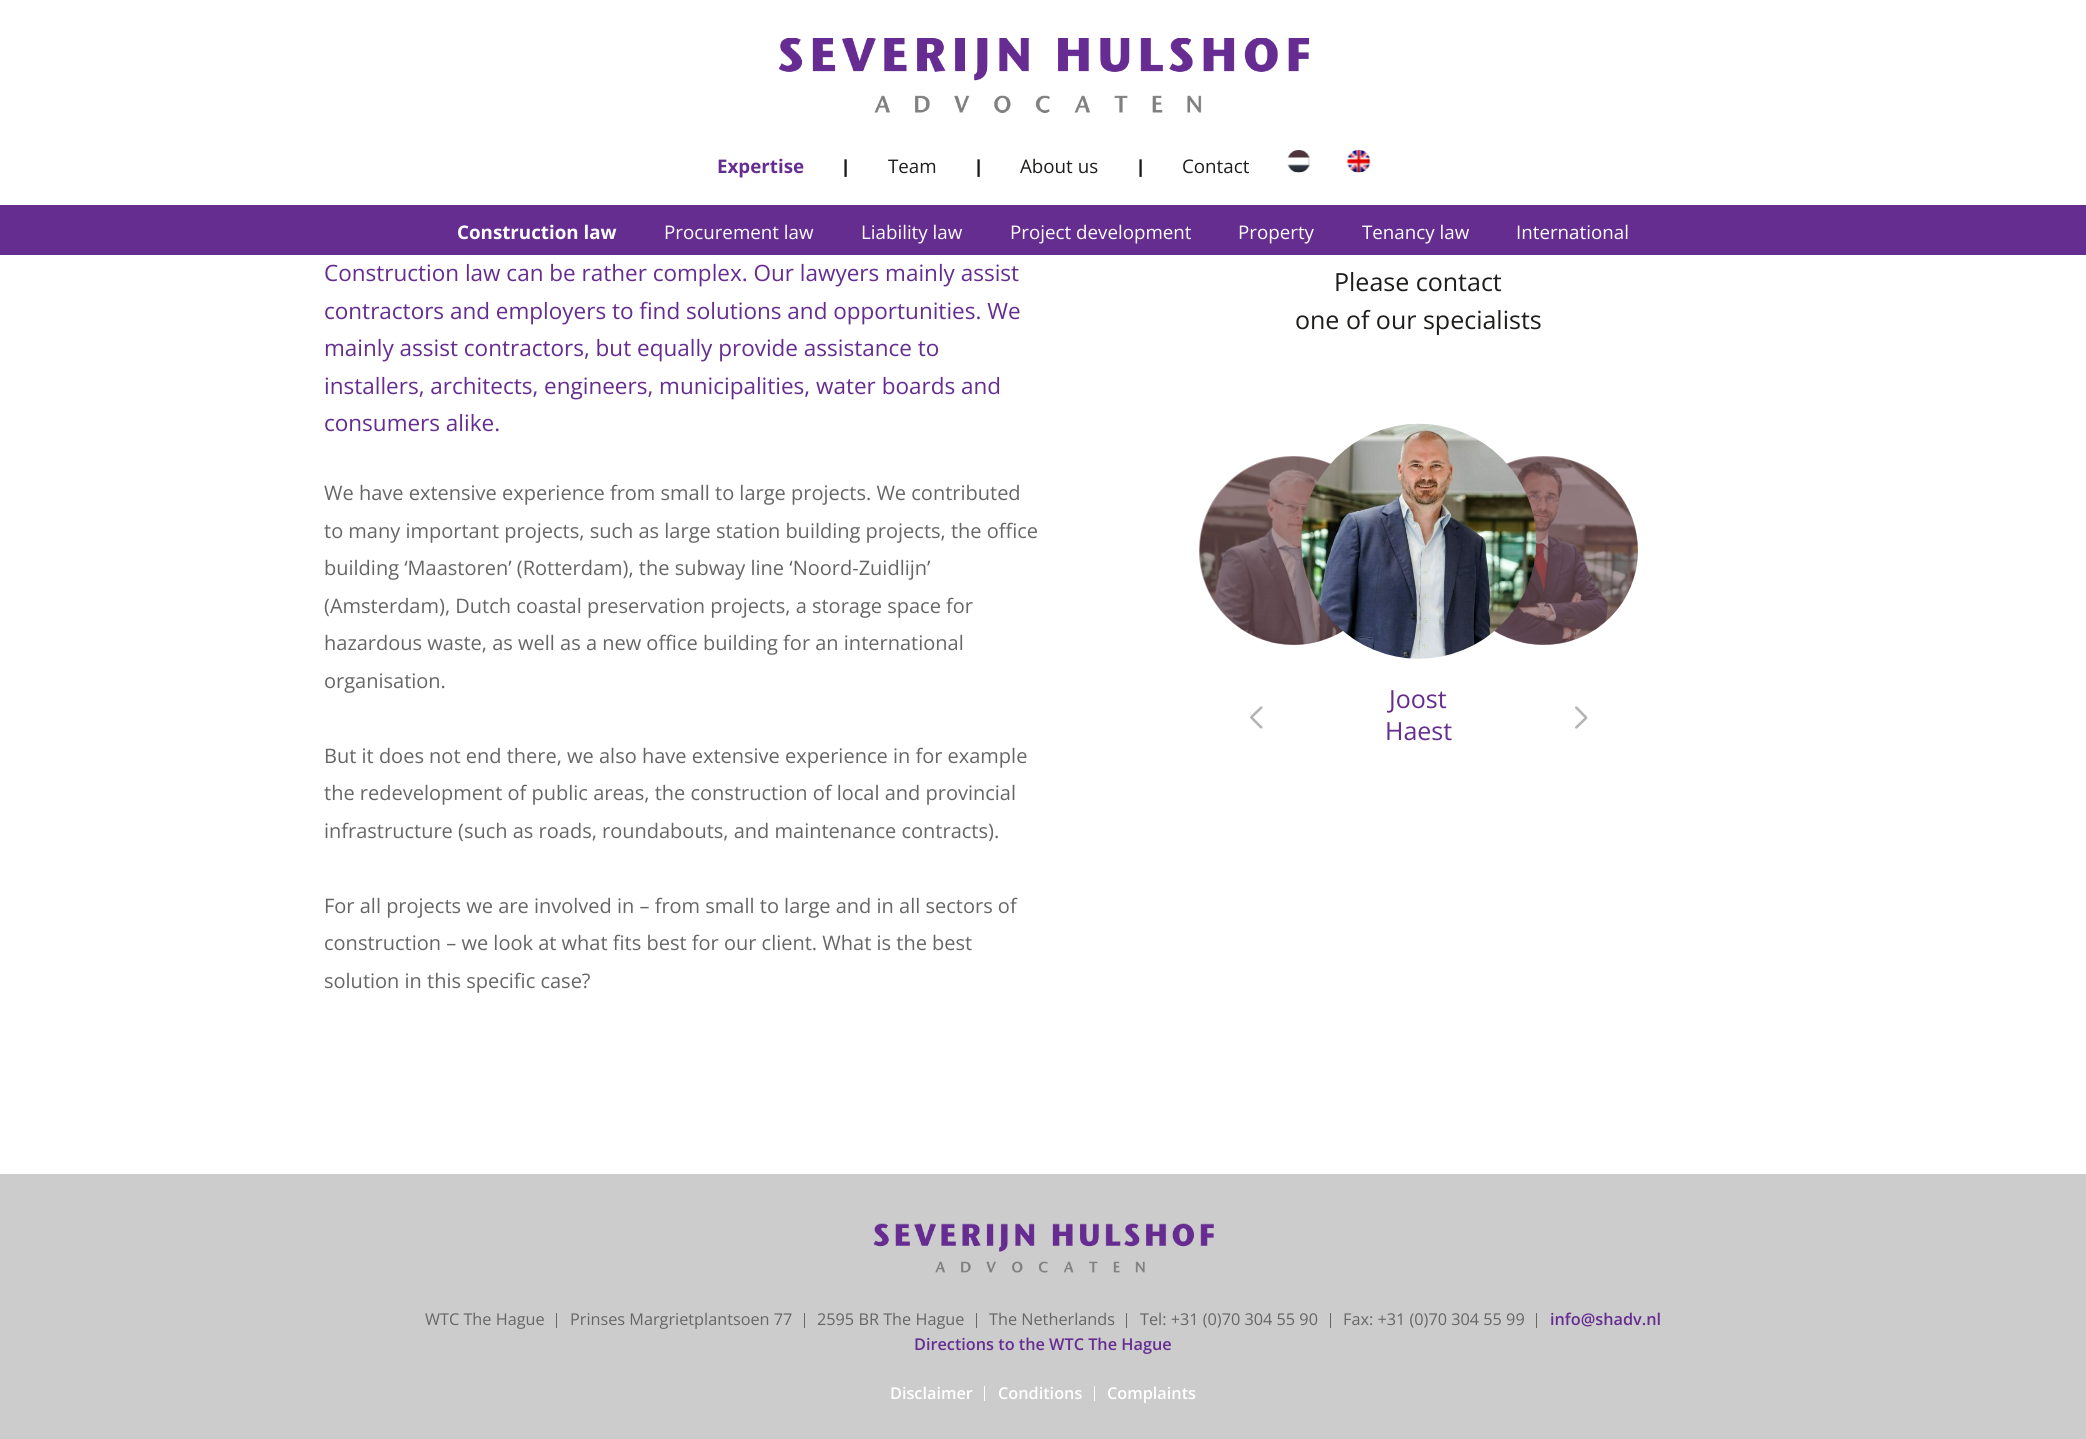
#include <cairo/cairo.h>
#include <math.h>
#include <stddef.h>

typedef struct { double x, y; const char *s; } line_t;
typedef struct { double x, y, w, h; unsigned color; } box_t;
static cairo_t *cr;

static void rgb(unsigned color)
{
	cairo_set_source_rgb(cr, (color >> 16) / 255.0, (color >> 8 & 255) / 255.0, (color & 255) / 255.0);
}

static void image(const char *path, double x, double y, double w, double h)
{
	cairo_surface_t *image = cairo_image_surface_create_from_png(path);
	cairo_save(cr);
	cairo_set_source_surface(cr, image, x, y);
	cairo_rectangle(cr, x, y, w, h);
	cairo_fill(cr);
	cairo_restore(cr);
	cairo_surface_destroy(image);
}

int main(void) {
	cairo_surface_t *surface = cairo_image_surface_create(CAIRO_FORMAT_RGB24, 2086, 1439);
	cr = cairo_create(surface);
	cairo_font_options_t *options = cairo_font_options_create();
	cairo_font_options_set_hint_metrics(options, CAIRO_HINT_METRICS_OFF);
	cairo_font_options_set_hint_style(options, CAIRO_HINT_STYLE_NONE);
	cairo_set_font_options(cr, options);
	cairo_set_miter_limit(cr, 4);
	rgb(0xffffff);
	cairo_paint(cr);
	image("img/1.png", 778, 38, 531, 75);
	image("img/2.png", 1287, 150, 24, 23);
	image("img/3.png", 1347, 150, 24, 23);
	rgb(0x662d91);
	cairo_rectangle(cr, 0, 205, 2086, 50);
	cairo_fill(cr);
	image("img/4.png", 1199, 456, 144, 189);
	cairo_set_source_rgba(cr, 0.408, 0.239, 0.271, 0.54);
	cairo_arc(cr, 1293.5, 550.5, 94.5, 0, 2 * M_PI);
	cairo_fill(cr);
	image("img/5.png", 1494, 456, 144, 189);
	cairo_arc(cr, 1543.5, 550.5, 94.5, 0, 2 * M_PI);
	cairo_fill(cr);
	image("img/6.png", 1301, 423, 236, 236);
	image("img/7.png", 1250, 706, 13, 23);
	image("img/8.png", 1575, 706, 13, 23);
	rgb(0xcccccc);
	cairo_rectangle(cr, 0, 1174, 2086, 265);
	cairo_fill(cr);
	image("img/9.png", 873, 1223, 341, 50);
	{
		static const box_t items[] = {
			{556, 1313, 1, 15, 0x666666},
			{804, 1313, 1, 15, 0x666666},
			{976, 1313, 1, 15, 0x666666},
			{1126, 1313, 1, 15, 0x666666},
			{1330, 1313, 1, 15, 0x666666},
			{1536, 1313, 1, 15, 0x666666},
			{984, 1386, 1, 15, 0xffffff},
			{1094, 1386, 1, 15, 0xffffff},
		};
		for (size_t i = 0; i < sizeof items / sizeof *items; i++) {
			rgb(items[i].color);
			cairo_rectangle(cr, items[i].x, items[i].y, items[i].w, items[i].h);
			cairo_fill(cr);
		}
	}
	cairo_select_font_face(cr, "Open Sans", CAIRO_FONT_SLANT_NORMAL, CAIRO_FONT_WEIGHT_BOLD);
	cairo_set_font_size(cr, 18.75);
	rgb(0x662d91);
	cairo_move_to(cr, 717, 173);
	cairo_show_text(cr, "Expertise");
	rgb(0xffffff);
	cairo_move_to(cr, 457, 239);
	cairo_show_text(cr, "Construction law");
	cairo_select_font_face(cr, "Open Sans", CAIRO_FONT_SLANT_NORMAL, CAIRO_FONT_WEIGHT_NORMAL);
	{
		static const line_t items[] = {
			{664, 239, "Procurement law"},
			{861, 239, "Liability law"},
			{1010, 239, "Project development"},
			{1238, 239, "Property"},
			{1362, 239, "Tenancy law"},
			{1516, 239, "International"},
		};
		for (size_t i = 0; i < sizeof items / sizeof *items; i++) {
			cairo_move_to(cr, items[i].x, items[i].y);
			cairo_show_text(cr, items[i].s);
		}
	}
	cairo_select_font_face(cr, "Open Sans ExtraBold", CAIRO_FONT_SLANT_NORMAL, CAIRO_FONT_WEIGHT_NORMAL);
	cairo_set_font_size(cr, 18);
	rgb(0x1d1d1b);
	cairo_move_to(cr, 841, 173);
	cairo_show_text(cr, "|");
	cairo_select_font_face(cr, "Open Sans", CAIRO_FONT_SLANT_NORMAL, CAIRO_FONT_WEIGHT_NORMAL);
	cairo_set_font_size(cr, 18.75);
	cairo_move_to(cr, 888, 173);
	cairo_show_text(cr, "Team");
	cairo_select_font_face(cr, "Open Sans ExtraBold", CAIRO_FONT_SLANT_NORMAL, CAIRO_FONT_WEIGHT_NORMAL);
	cairo_set_font_size(cr, 18);
	cairo_move_to(cr, 974, 173);
	cairo_show_text(cr, "|");
	cairo_select_font_face(cr, "Open Sans", CAIRO_FONT_SLANT_NORMAL, CAIRO_FONT_WEIGHT_NORMAL);
	cairo_set_font_size(cr, 18.75);
	cairo_move_to(cr, 1020, 173);
	cairo_show_text(cr, "About us");
	cairo_select_font_face(cr, "Open Sans ExtraBold", CAIRO_FONT_SLANT_NORMAL, CAIRO_FONT_WEIGHT_NORMAL);
	cairo_set_font_size(cr, 18);
	cairo_move_to(cr, 1136, 173);
	cairo_show_text(cr, "|");
	cairo_select_font_face(cr, "Open Sans", CAIRO_FONT_SLANT_NORMAL, CAIRO_FONT_WEIGHT_NORMAL);
	cairo_set_font_size(cr, 18.75);
	cairo_move_to(cr, 1182, 173);
	cairo_show_text(cr, "Contact");
	cairo_set_font_size(cr, 22.5);
	rgb(0x662d91);
	{
		static const line_t items[] = {
			{324, 281, "Construction law can be rather complex. Our lawyers mainly assist"},
			{324, 319, "contractors and employers to find solutions and opportunities. We"},
			{324, 356, "mainly assist contractors, but equally provide assistance to"},
			{324, 394, "installers, architects, engineers, municipalities, water boards and"},
			{324, 431, "consumers alike."},
		};
		for (size_t i = 0; i < sizeof items / sizeof *items; i++) {
			cairo_move_to(cr, items[i].x, items[i].y);
			cairo_show_text(cr, items[i].s);
		}
	}
	cairo_set_font_size(cr, 20);
	rgb(0x666666);
	{
		static const line_t items[] = {
			{324, 500, "We have extensive experience from small to large projects. We contributed"},
			{324, 538, "to many important projects, such as large station building projects, the office"},
			{324, 575, "building ‘Maastoren’ (Rotterdam), the subway line ‘Noord-Zuidlijn’"},
			{324, 613, "(Amsterdam), Dutch coastal preservation projects, a storage space for"},
			{324, 650, "hazardous waste, as well as a new office building for an international"},
			{324, 688, "organisation."},
			{324, 763, "But it does not end there, we also have extensive experience in for example"},
			{324, 800, "the redevelopment of public areas, the construction of local and provincial"},
			{324, 838, "infrastructure (such as roads, roundabouts, and maintenance contracts)."},
			{324, 913, "For all projects we are involved in – from small to large and in all sectors of"},
			{324, 950, "construction – we look at what fits best for our client. What is the best"},
			{324, 988, "solution in this specific case?"},
		};
		for (size_t i = 0; i < sizeof items / sizeof *items; i++) {
			cairo_move_to(cr, items[i].x, items[i].y);
			cairo_show_text(cr, items[i].s);
		}
	}
	cairo_set_font_size(cr, 25);
	rgb(0x1d1d1b);
	cairo_move_to(cr, 1334, 291);
	cairo_show_text(cr, "Please contact");
	cairo_move_to(cr, 1295, 329);
	cairo_show_text(cr, "one of our specialists");
	rgb(0x662d91);
	cairo_move_to(cr, 1389, 708);
	cairo_show_text(cr, "Joost");
	cairo_move_to(cr, 1385, 740);
	cairo_show_text(cr, "Haest");
	cairo_set_font_size(cr, 16.25);
	rgb(0x666666);
	{
		static const line_t items[] = {
			{425, 1325, "WTC The Hague"},
			{570, 1325, "Prinses Margrietplantsoen 77"},
			{817, 1325, "2595 BR The Hague"},
			{989, 1325, "The Netherlands"},
			{1140, 1325, "Tel: +31 (0)70 304 55 90"},
			{1343, 1325, "Fax: +31 (0)70 304 55 99"},
		};
		for (size_t i = 0; i < sizeof items / sizeof *items; i++) {
			cairo_move_to(cr, items[i].x, items[i].y);
			cairo_show_text(cr, items[i].s);
		}
	}
	cairo_select_font_face(cr, "Open Sans SemiBold", CAIRO_FONT_SLANT_NORMAL, CAIRO_FONT_WEIGHT_NORMAL);
	rgb(0x662d91);
	cairo_move_to(cr, 1550, 1325);
	cairo_show_text(cr, "info@shadv.nl");
	cairo_move_to(cr, 914, 1350);
	cairo_show_text(cr, "Directions to the WTC The Hague");
	rgb(0xffffff);
	{
		static const line_t items[] = {
			{890, 1399, "Disclaimer"},
			{998, 1399, "Conditions"},
			{1107, 1399, "Complaints"},
		};
		for (size_t i = 0; i < sizeof items / sizeof *items; i++) {
			cairo_move_to(cr, items[i].x, items[i].y);
			cairo_show_text(cr, items[i].s);
		}
	}
	cairo_surface_write_to_png(surface, "page.png");
	cairo_font_options_destroy(options);
	cairo_destroy(cr);
	cairo_surface_destroy(surface);
	return 0;
}
